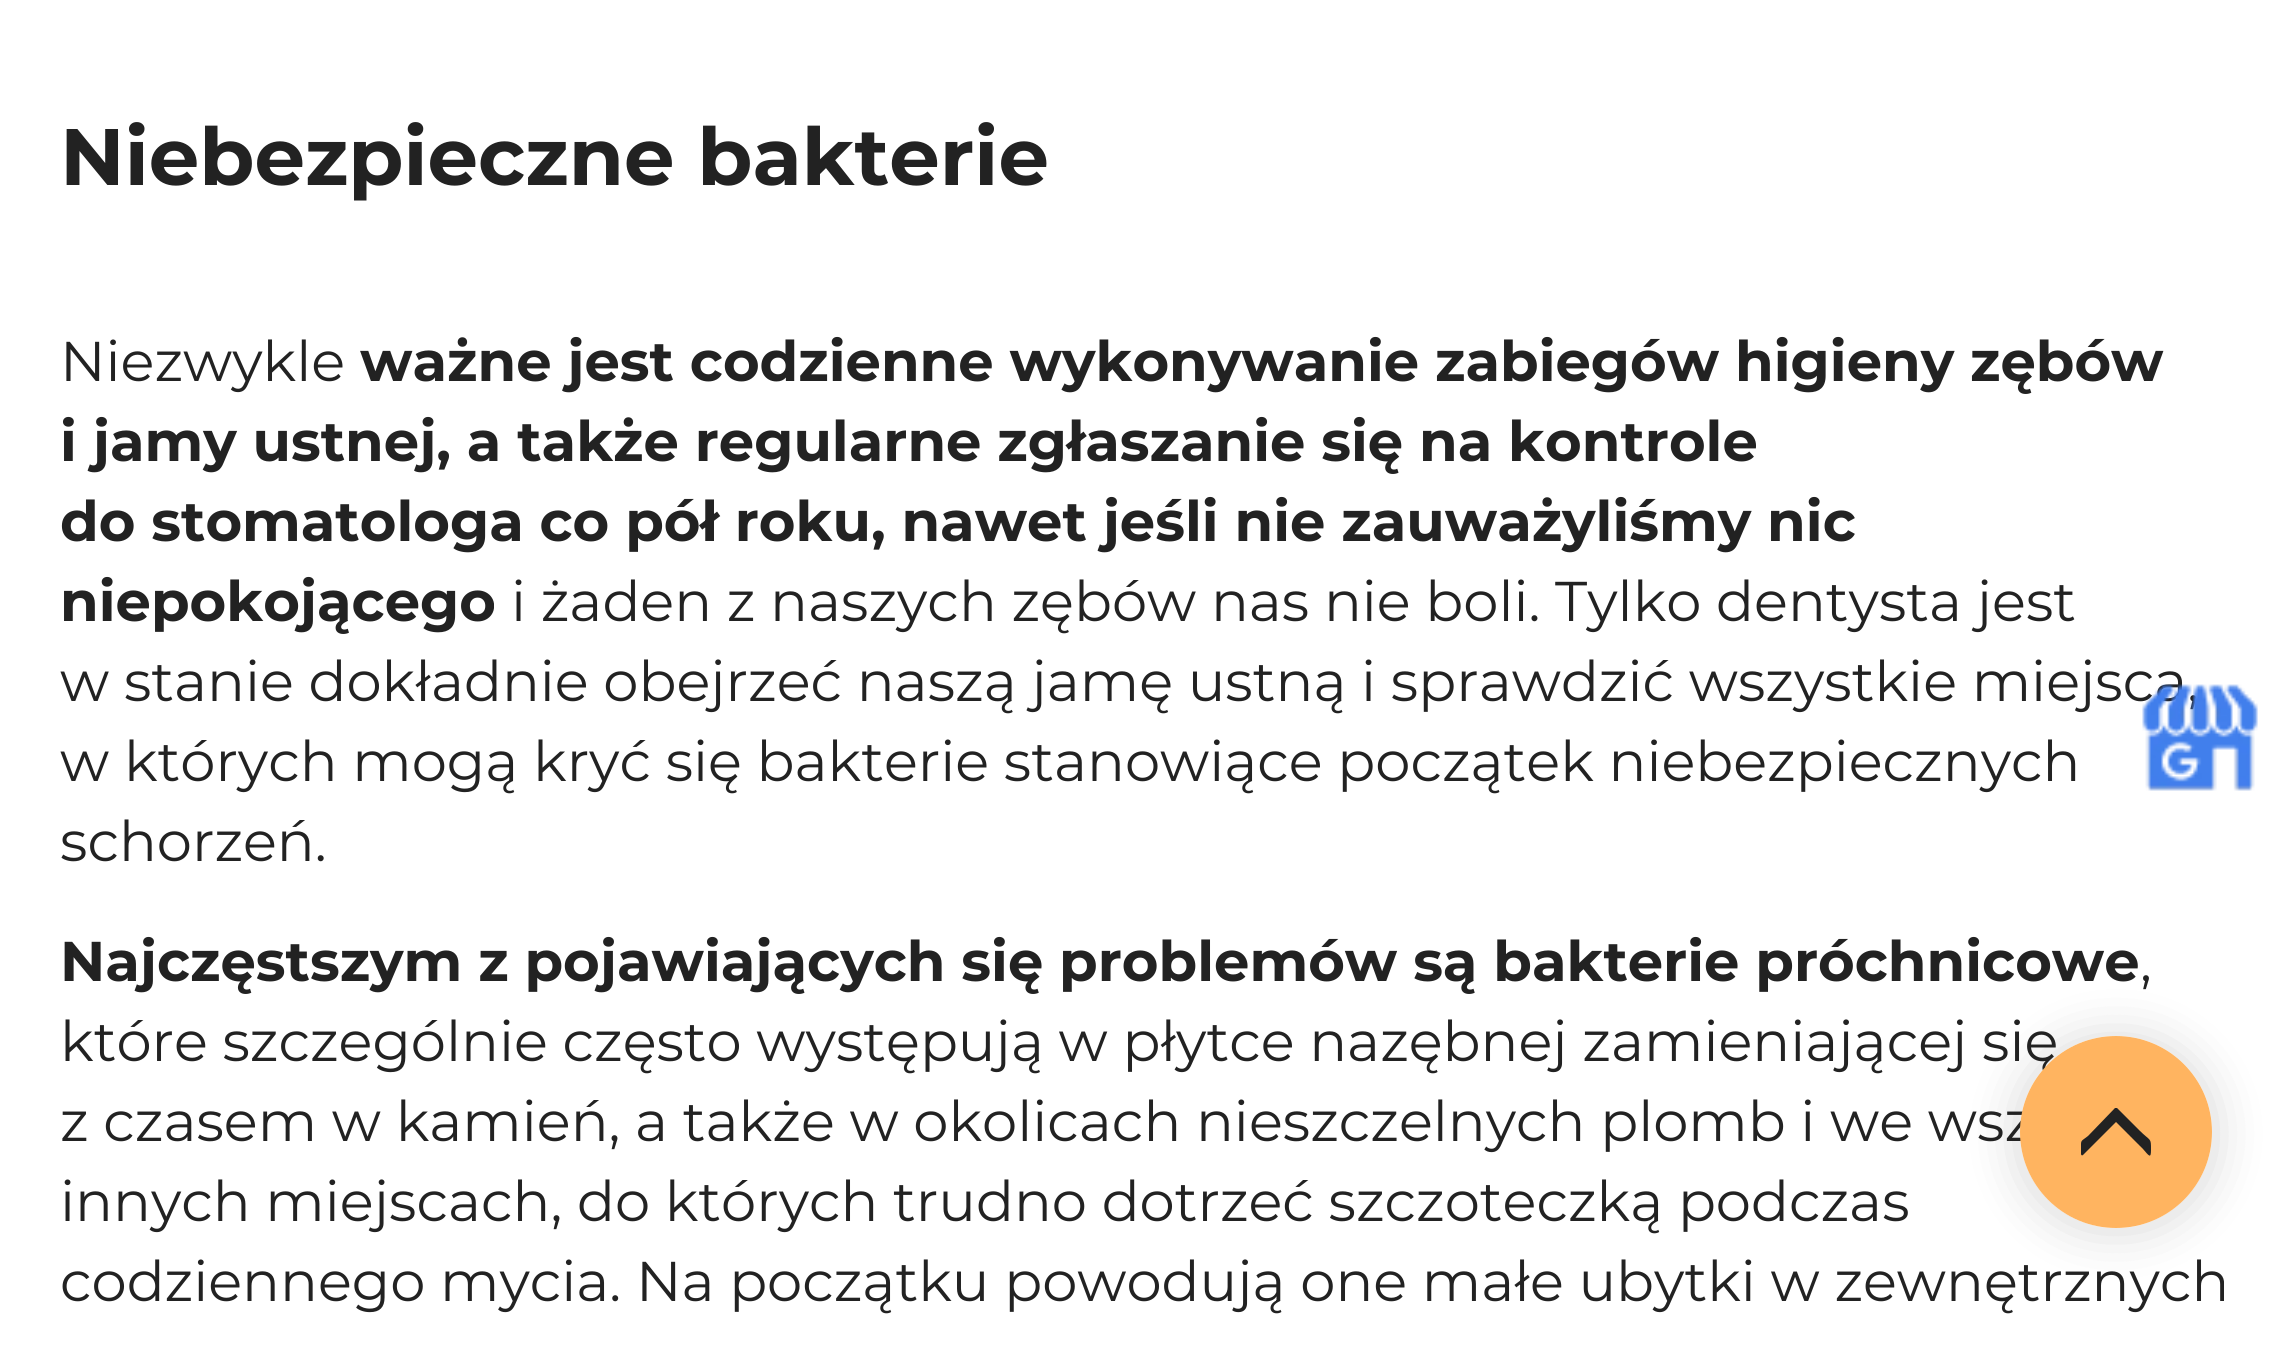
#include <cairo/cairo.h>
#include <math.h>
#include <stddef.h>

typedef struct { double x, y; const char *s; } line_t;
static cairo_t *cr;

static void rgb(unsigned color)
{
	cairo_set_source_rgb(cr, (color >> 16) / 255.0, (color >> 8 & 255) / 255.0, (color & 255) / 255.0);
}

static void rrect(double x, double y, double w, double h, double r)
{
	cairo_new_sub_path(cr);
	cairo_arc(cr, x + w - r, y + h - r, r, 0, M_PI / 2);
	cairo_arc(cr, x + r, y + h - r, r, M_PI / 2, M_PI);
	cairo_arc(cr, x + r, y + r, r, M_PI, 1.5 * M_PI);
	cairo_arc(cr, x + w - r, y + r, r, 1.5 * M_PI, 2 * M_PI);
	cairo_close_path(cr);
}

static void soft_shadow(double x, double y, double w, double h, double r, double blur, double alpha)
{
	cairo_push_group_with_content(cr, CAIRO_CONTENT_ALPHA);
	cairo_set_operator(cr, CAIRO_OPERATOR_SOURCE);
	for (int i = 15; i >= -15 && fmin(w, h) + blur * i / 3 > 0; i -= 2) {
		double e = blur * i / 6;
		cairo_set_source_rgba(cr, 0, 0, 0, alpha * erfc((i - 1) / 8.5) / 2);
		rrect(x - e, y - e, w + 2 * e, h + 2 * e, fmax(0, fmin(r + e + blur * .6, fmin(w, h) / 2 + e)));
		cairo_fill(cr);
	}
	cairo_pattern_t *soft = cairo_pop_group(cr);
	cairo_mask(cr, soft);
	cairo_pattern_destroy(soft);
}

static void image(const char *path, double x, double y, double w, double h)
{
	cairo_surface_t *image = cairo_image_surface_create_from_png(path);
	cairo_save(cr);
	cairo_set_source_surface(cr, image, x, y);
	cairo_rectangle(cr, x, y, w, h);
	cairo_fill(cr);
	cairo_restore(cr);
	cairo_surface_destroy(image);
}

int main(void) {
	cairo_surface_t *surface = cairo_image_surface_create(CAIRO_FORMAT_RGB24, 2295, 1347);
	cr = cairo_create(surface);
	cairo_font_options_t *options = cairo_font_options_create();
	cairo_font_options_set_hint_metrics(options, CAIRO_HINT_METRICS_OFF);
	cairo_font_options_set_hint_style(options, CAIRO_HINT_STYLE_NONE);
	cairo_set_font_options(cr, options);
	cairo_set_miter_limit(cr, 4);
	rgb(0xffffff);
	cairo_paint(cr);
	cairo_save(cr);
	cairo_set_fill_rule(cr, CAIRO_FILL_RULE_EVEN_ODD);
	cairo_new_path(cr);
	cairo_move_to(cr, 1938, 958);
	cairo_line_to(cr, 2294, 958);
	cairo_line_to(cr, 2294, 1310);
	cairo_line_to(cr, 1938, 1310);
	cairo_close_path(cr);
	cairo_move_to(cr, 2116, 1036);
	cairo_curve_to(cr, 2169, 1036, 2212, 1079, 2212, 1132);
	cairo_curve_to(cr, 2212, 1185, 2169, 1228, 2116, 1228);
	cairo_curve_to(cr, 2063, 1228, 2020, 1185, 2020, 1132);
	cairo_curve_to(cr, 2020, 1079, 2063, 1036, 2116, 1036);
	cairo_close_path(cr);
	cairo_clip(cr);
	rgb(0x000000);
	soft_shadow(2016, 1036, 200, 196, 98, 25.5, 0.15);
	cairo_restore(cr);
	cairo_select_font_face(cr, "Montserrat", CAIRO_FONT_SLANT_NORMAL, CAIRO_FONT_WEIGHT_BOLD);
	cairo_set_font_size(cr, 80);
	rgb(0x222222);
	cairo_move_to(cr, 60, 185);
	cairo_show_text(cr, "Niebezpieczne bakterie");
	cairo_select_font_face(cr, "Montserrat", CAIRO_FONT_SLANT_NORMAL, CAIRO_FONT_WEIGHT_NORMAL);
	cairo_set_font_size(cr, 56);
	cairo_move_to(cr, 60, 381);
	cairo_show_text(cr, "Niezwykle");
	cairo_select_font_face(cr, "Montserrat", CAIRO_FONT_SLANT_NORMAL, CAIRO_FONT_WEIGHT_BOLD);
	{
		static const line_t items[] = {
			{360, 381, "ważne jest codzienne wykonywanie zabiegów higieny zębów"},
			{60, 461, "i jamy ustnej, a także regularne zgłaszanie się na kontrole"},
			{60, 541, "do stomatologa co pół roku, nawet jeśli nie zauważyliśmy nic"},
			{60, 621, "niepokojącego"},
		};
		for (size_t i = 0; i < sizeof items / sizeof *items; i++) {
			cairo_move_to(cr, items[i].x, items[i].y);
			cairo_show_text(cr, items[i].s);
		}
	}
	cairo_select_font_face(cr, "Montserrat", CAIRO_FONT_SLANT_NORMAL, CAIRO_FONT_WEIGHT_NORMAL);
	{
		static const line_t items[] = {
			{511, 621, "i żaden z naszych zębów nas nie boli. Tylko dentysta jest"},
			{60, 701, "w stanie dokładnie obejrzeć naszą jamę ustną i sprawdzić wszystkie miejsca,"},
			{60, 781, "w których mogą kryć się bakterie stanowiące początek niebezpiecznych"},
			{60, 861, "schorzeń."},
		};
		for (size_t i = 0; i < sizeof items / sizeof *items; i++) {
			cairo_move_to(cr, items[i].x, items[i].y);
			cairo_show_text(cr, items[i].s);
		}
	}
	cairo_select_font_face(cr, "Montserrat", CAIRO_FONT_SLANT_NORMAL, CAIRO_FONT_WEIGHT_BOLD);
	cairo_move_to(cr, 60, 981);
	cairo_show_text(cr, "Najczęstszym z pojawiających się problemów są bakterie próchnicowe");
	cairo_select_font_face(cr, "Montserrat", CAIRO_FONT_SLANT_NORMAL, CAIRO_FONT_WEIGHT_NORMAL);
	{
		static const line_t items[] = {
			{2140, 981, ","},
			{60, 1061, "które szczególnie często występują w płytce nazębnej zamieniającej się"},
			{60, 1141, "z czasem w kamień, a także w okolicach nieszczelnych plomb i we wsz"},
			{60, 1221, "innych miejscach, do których trudno dotrzeć szczoteczką podczas"},
			{60, 1301, "codziennego mycia. Na początku powodują one małe ubytki w zewnętrznych"},
		};
		for (size_t i = 0; i < sizeof items / sizeof *items; i++) {
			cairo_move_to(cr, items[i].x, items[i].y);
			cairo_show_text(cr, items[i].s);
		}
	}
	image("img/1.png", 2142, 684, 116, 107);
	rgb(0xffb460);
	cairo_arc(cr, 2116, 1132, 96, 0, 2 * M_PI);
	cairo_fill(cr);
	rgb(0x222222);
	cairo_new_path(cr);
	cairo_move_to(cr, 2117, 1108);
	cairo_line_to(cr, 2139, 1130);
	cairo_curve_to(cr, 2151, 1142, 2151, 1137, 2151, 1150);
	cairo_curve_to(cr, 2151, 1159, 2149, 1156, 2143, 1149);
	cairo_line_to(cr, 2116, 1122);
	cairo_line_to(cr, 2083, 1155);
	cairo_curve_to(cr, 2082, 1156, 2081, 1155, 2081, 1154);
	cairo_line_to(cr, 2081, 1144);
	cairo_curve_to(cr, 2081, 1140, 2083, 1140, 2088, 1136);
	cairo_line_to(cr, 2115, 1108);
	cairo_curve_to(cr, 2116, 1108, 2117, 1108, 2117, 1108);
	cairo_close_path(cr);
	cairo_fill(cr);
	cairo_surface_write_to_png(surface, "page.png");
	cairo_font_options_destroy(options);
	cairo_destroy(cr);
	cairo_surface_destroy(surface);
	return 0;
}
